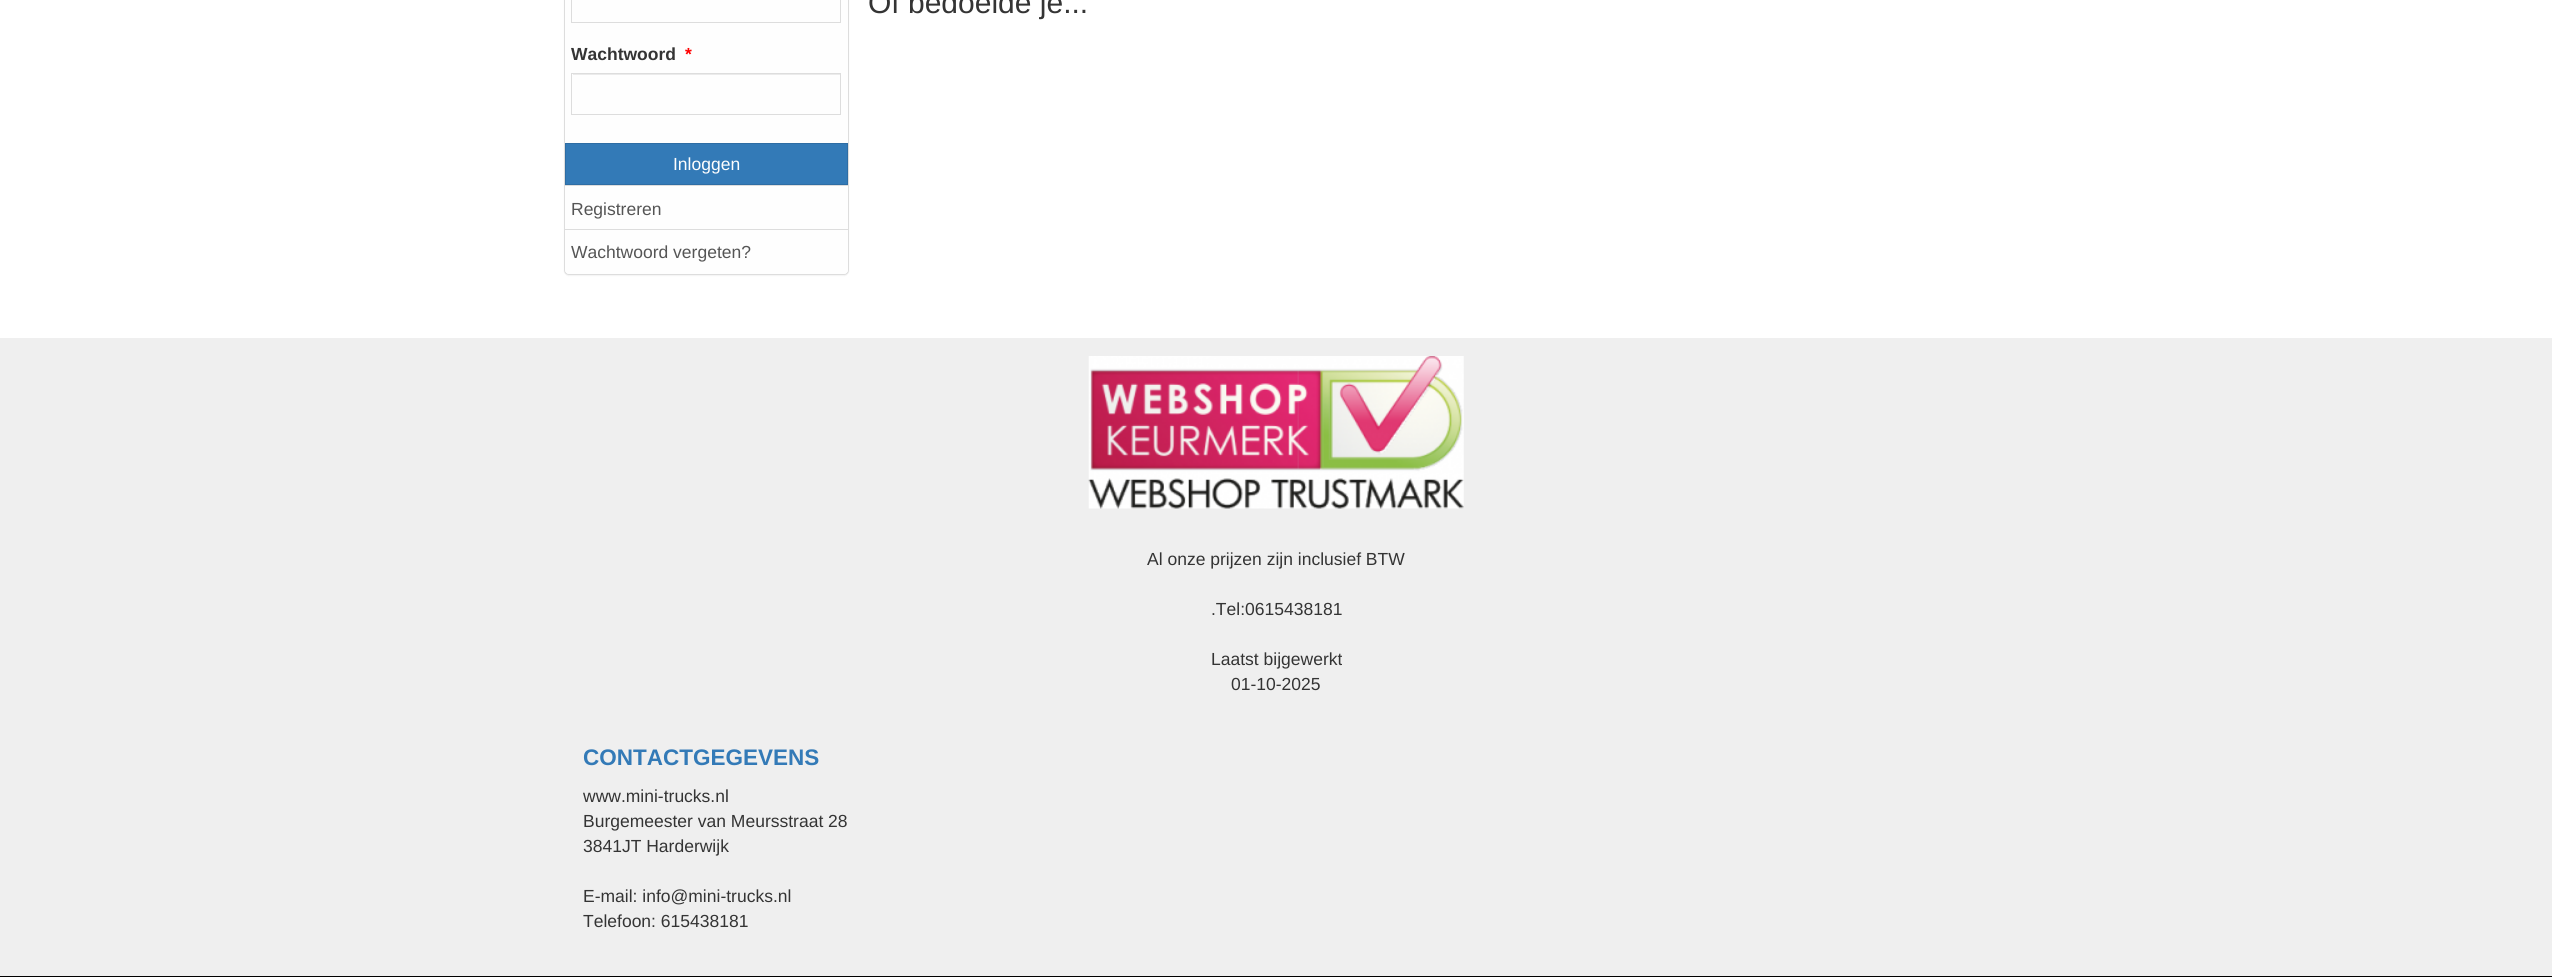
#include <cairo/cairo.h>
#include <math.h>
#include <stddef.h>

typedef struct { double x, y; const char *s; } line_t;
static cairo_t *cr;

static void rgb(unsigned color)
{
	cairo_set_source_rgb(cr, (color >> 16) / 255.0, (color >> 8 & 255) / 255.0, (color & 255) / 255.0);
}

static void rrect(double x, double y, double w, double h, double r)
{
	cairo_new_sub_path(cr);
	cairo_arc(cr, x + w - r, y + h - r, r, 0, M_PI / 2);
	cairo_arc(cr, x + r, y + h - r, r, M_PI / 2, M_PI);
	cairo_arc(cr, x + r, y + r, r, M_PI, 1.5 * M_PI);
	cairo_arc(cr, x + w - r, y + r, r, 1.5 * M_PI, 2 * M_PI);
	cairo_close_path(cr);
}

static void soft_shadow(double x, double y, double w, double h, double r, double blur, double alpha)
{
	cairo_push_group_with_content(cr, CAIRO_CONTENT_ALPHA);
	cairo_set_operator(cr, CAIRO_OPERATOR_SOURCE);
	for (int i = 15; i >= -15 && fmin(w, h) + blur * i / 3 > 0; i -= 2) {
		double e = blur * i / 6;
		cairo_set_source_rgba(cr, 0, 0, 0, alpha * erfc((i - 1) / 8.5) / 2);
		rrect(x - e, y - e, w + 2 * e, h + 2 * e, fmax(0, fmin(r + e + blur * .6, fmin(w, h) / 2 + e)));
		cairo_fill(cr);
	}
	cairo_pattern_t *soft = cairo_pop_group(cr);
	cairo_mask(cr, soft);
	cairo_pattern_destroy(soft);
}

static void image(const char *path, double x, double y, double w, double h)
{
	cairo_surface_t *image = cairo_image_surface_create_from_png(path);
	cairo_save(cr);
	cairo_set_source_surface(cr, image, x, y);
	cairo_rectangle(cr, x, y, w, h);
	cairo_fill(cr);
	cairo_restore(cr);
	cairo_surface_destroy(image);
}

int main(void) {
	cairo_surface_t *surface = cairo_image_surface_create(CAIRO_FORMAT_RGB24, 2552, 977);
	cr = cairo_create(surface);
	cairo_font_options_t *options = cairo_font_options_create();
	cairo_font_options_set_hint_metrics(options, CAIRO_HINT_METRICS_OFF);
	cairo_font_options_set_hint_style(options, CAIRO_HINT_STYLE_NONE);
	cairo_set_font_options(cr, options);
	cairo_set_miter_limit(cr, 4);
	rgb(0xffffff);
	cairo_paint(cr);
	rgb(0x000000);
	soft_shadow(564, -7, 285, 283, 5, 0.5, 0.05);
	rgb(0xfefefe);
	rrect(564.5, -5.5, 284, 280, 4.5);
	cairo_fill_preserve(cr);
	rgb(0xdddddd);
	cairo_set_line_width(cr, 1);
	cairo_stroke(cr);
	cairo_rectangle(cr, 571.5, -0.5, 269, 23);
	cairo_stroke(cr);
	rgb(0xebebeb);
	cairo_rectangle(cr, 573, 74, 267, 1);
	cairo_fill(cr);
	cairo_rectangle(cr, 571.5, 73.5, 269, 41);
	rgb(0xdddddd);
	cairo_stroke(cr);
	rgb(0x337ab7);
	cairo_rectangle(cr, 565.5, 143.5, 282, 41);
	cairo_fill_preserve(cr);
	rgb(0x2e6da4);
	cairo_stroke(cr);
	rgb(0xdddddd);
	cairo_rectangle(cr, 565, 185, 283, 1);
	cairo_fill(cr);
	rgb(0xfefefe);
	cairo_new_path(cr);
	cairo_move_to(cr, 565, 229);
	cairo_line_to(cr, 848, 229);
	cairo_line_to(cr, 848, 269);
	cairo_curve_to(cr, 848, 272, 846, 274, 843, 274);
	cairo_line_to(cr, 570, 274);
	cairo_curve_to(cr, 567, 274, 565, 272, 565, 269);
	cairo_close_path(cr);
	cairo_fill(cr);
	rgb(0xdddddd);
	cairo_rectangle(cr, 565, 229, 283, 1);
	cairo_fill(cr);
	rgb(0xefefef);
	cairo_rectangle(cr, 0, 338, 2552, 638);
	cairo_fill(cr);
	image("img/1.png", 1088, 356, 376, 153);
	rgb(0x000000);
	cairo_rectangle(cr, 0, 976, 2552, 1);
	cairo_fill(cr);
	cairo_select_font_face(cr, "Liberation Sans", CAIRO_FONT_SLANT_NORMAL, CAIRO_FONT_WEIGHT_NORMAL);
	cairo_set_font_size(cr, 30);
	rgb(0x343434);
	cairo_move_to(cr, 868, 13);
	cairo_show_text(cr, "Of bedoelde je...");
	cairo_select_font_face(cr, "Liberation Sans", CAIRO_FONT_SLANT_NORMAL, CAIRO_FONT_WEIGHT_BOLD);
	cairo_set_font_size(cr, 17.5);
	cairo_move_to(cr, 571, 60);
	cairo_show_text(cr, "Wachtwoord");
	rgb(0xff0000);
	cairo_move_to(cr, 685, 60);
	cairo_show_text(cr, "*");
	cairo_select_font_face(cr, "Liberation Sans", CAIRO_FONT_SLANT_NORMAL, CAIRO_FONT_WEIGHT_NORMAL);
	rgb(0xfefefe);
	cairo_move_to(cr, 673, 170);
	cairo_show_text(cr, "Inloggen");
	rgb(0x555555);
	cairo_move_to(cr, 571, 215);
	cairo_show_text(cr, "Registreren");
	cairo_move_to(cr, 571, 258);
	cairo_show_text(cr, "Wachtwoord vergeten?");
	rgb(0x343434);
	{
		static const line_t items[] = {
			{1147, 565, "Al onze prijzen zijn inclusief BTW"},
			{1211, 615, ".Tel:0615438181"},
			{1211, 665, "Laatst bijgewerkt"},
			{1231, 690, "01-10-2025"},
		};
		for (size_t i = 0; i < sizeof items / sizeof *items; i++) {
			cairo_move_to(cr, items[i].x, items[i].y);
			cairo_show_text(cr, items[i].s);
		}
	}
	cairo_select_font_face(cr, "Liberation Sans", CAIRO_FONT_SLANT_NORMAL, CAIRO_FONT_WEIGHT_BOLD);
	cairo_set_font_size(cr, 22.5);
	rgb(0x337ab7);
	cairo_move_to(cr, 583, 765);
	cairo_show_text(cr, "CONTACTGEGEVENS");
	cairo_select_font_face(cr, "Liberation Sans", CAIRO_FONT_SLANT_NORMAL, CAIRO_FONT_WEIGHT_NORMAL);
	cairo_set_font_size(cr, 17.5);
	rgb(0x343434);
	{
		static const line_t items[] = {
			{583, 802, "www.mini-trucks.nl"},
			{583, 827, "Burgemeester van Meursstraat 28"},
			{583, 852, "3841JT Harderwijk"},
			{583, 902, "E-mail: info@mini-trucks.nl"},
			{583, 927, "Telefoon: 615438181"},
		};
		for (size_t i = 0; i < sizeof items / sizeof *items; i++) {
			cairo_move_to(cr, items[i].x, items[i].y);
			cairo_show_text(cr, items[i].s);
		}
	}
	cairo_surface_write_to_png(surface, "page.png");
	cairo_font_options_destroy(options);
	cairo_destroy(cr);
	cairo_surface_destroy(surface);
	return 0;
}
